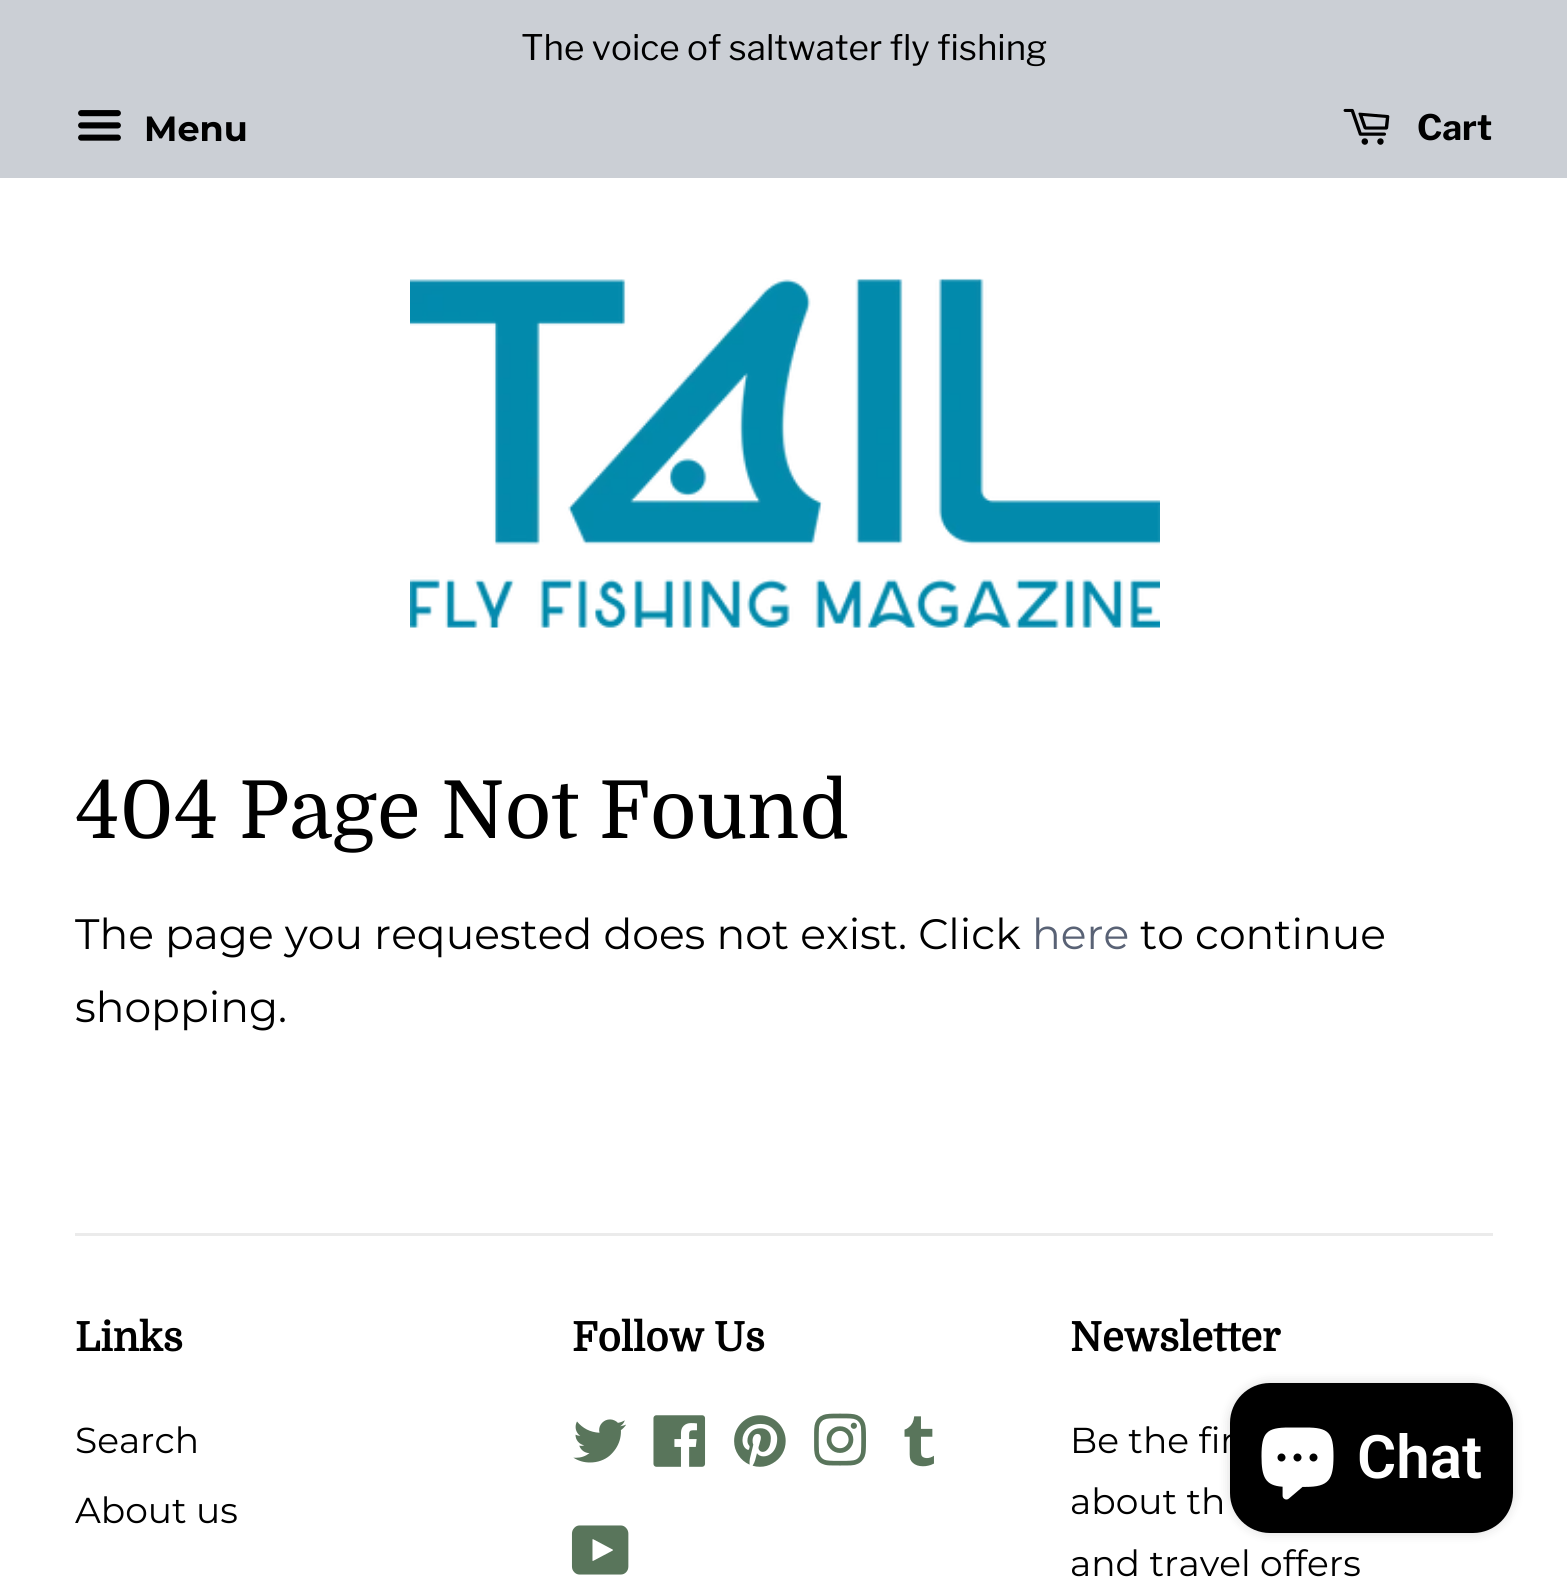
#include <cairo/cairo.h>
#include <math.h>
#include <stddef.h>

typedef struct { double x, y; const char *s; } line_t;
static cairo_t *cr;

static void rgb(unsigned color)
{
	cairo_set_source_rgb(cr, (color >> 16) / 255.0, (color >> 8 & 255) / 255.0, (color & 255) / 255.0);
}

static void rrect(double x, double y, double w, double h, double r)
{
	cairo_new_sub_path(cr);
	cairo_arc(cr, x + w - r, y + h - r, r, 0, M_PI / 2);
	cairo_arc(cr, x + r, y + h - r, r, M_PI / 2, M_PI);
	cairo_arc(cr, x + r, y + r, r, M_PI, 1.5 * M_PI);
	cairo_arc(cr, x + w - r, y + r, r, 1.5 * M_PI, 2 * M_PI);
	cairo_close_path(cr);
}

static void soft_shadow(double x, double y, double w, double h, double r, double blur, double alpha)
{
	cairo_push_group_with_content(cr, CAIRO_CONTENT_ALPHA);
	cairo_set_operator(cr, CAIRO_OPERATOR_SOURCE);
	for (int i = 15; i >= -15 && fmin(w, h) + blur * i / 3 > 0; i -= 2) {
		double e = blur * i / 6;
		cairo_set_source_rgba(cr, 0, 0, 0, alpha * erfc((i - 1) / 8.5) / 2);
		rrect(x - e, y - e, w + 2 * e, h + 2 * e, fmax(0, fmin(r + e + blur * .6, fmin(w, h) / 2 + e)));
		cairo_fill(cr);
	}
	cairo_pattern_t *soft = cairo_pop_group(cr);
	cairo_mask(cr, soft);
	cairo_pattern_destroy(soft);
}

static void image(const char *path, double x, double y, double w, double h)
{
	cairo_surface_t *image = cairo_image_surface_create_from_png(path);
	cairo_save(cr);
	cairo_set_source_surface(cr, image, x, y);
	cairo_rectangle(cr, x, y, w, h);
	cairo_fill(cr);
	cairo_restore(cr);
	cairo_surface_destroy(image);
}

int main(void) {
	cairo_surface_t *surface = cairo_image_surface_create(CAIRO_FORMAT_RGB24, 1567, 1583);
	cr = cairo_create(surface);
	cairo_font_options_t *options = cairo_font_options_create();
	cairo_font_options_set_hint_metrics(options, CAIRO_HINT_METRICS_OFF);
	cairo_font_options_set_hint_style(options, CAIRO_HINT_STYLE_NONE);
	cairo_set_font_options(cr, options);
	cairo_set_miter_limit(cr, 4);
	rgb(0xffffff);
	cairo_paint(cr);
	rgb(0xcbcfd5);
	cairo_rectangle(cr, 0, 0, 1567, 178);
	cairo_fill(cr);
	image("img/1.png", 78, 110, 43, 31);
	image("img/2.png", 1343, 108, 47, 37);
	image("img/3.png", 410, 278, 750, 350);
	rgb(0xebebeb);
	cairo_rectangle(cr, 75, 1233, 1418, 3);
	cairo_fill(cr);
	image("img/4.png", 573, 1419, 53, 44);
	image("img/5.png", 653, 1415, 53, 52);
	image("img/6.png", 734, 1415, 52, 52);
	image("img/7.png", 814, 1413, 52, 53);
	image("img/8.png", 904, 1416, 30, 51);
	image("img/9.png", 571, 1525, 58, 50);
	rgb(0x000000);
	soft_shadow(1230, 1383, 283, 150, 40, 6, 0.15);
	rgb(0x000000);
	rrect(1230, 1383, 283, 150, 40);
	cairo_fill(cr);
	image("img/10.png", 1261, 1427, 73, 73);
	cairo_select_font_face(cr, "Libre Franklin", CAIRO_FONT_SLANT_NORMAL, CAIRO_FONT_WEIGHT_NORMAL);
	cairo_set_font_size(cr, 35);
	cairo_move_to(cr, 521, 60);
	cairo_show_text(cr, "The voice of saltwater fly fishing");
	cairo_select_font_face(cr, "Montserrat", CAIRO_FONT_SLANT_NORMAL, CAIRO_FONT_WEIGHT_BOLD);
	cairo_move_to(cr, 144, 141);
	cairo_show_text(cr, "Menu");
	cairo_select_font_face(cr, "Libre Franklin", CAIRO_FONT_SLANT_NORMAL, CAIRO_FONT_WEIGHT_BOLD);
	cairo_move_to(cr, 1417, 140);
	cairo_show_text(cr, "Cart");
	cairo_select_font_face(cr, "Domine", CAIRO_FONT_SLANT_NORMAL, CAIRO_FONT_WEIGHT_NORMAL);
	cairo_set_font_size(cr, 80);
	cairo_move_to(cr, 75, 838);
	cairo_show_text(cr, "404 Page Not Found");
	cairo_select_font_face(cr, "Montserrat", CAIRO_FONT_SLANT_NORMAL, CAIRO_FONT_WEIGHT_NORMAL);
	cairo_set_font_size(cr, 42.5);
	cairo_move_to(cr, 75, 949);
	cairo_show_text(cr, "The page you requested does not exist. Click");
	rgb(0x596275);
	cairo_move_to(cr, 1032, 949);
	cairo_show_text(cr, "here");
	rgb(0x000000);
	cairo_move_to(cr, 1140, 949);
	cairo_show_text(cr, "to continue");
	cairo_move_to(cr, 75, 1022);
	cairo_show_text(cr, "shopping.");
	cairo_select_font_face(cr, "Domine", CAIRO_FONT_SLANT_NORMAL, CAIRO_FONT_WEIGHT_BOLD);
	cairo_set_font_size(cr, 40);
	cairo_move_to(cr, 75, 1351);
	cairo_show_text(cr, "Links");
	cairo_select_font_face(cr, "Montserrat", CAIRO_FONT_SLANT_NORMAL, CAIRO_FONT_WEIGHT_NORMAL);
	cairo_set_font_size(cr, 36);
	cairo_move_to(cr, 75, 1453);
	cairo_show_text(cr, "Search");
	cairo_move_to(cr, 75, 1523);
	cairo_show_text(cr, "About us");
	cairo_select_font_face(cr, "Domine", CAIRO_FONT_SLANT_NORMAL, CAIRO_FONT_WEIGHT_BOLD);
	cairo_set_font_size(cr, 40);
	cairo_move_to(cr, 572, 1351);
	cairo_show_text(cr, "Follow Us");
	cairo_move_to(cr, 1070, 1351);
	cairo_show_text(cr, "Newsletter");
	cairo_select_font_face(cr, "Montserrat", CAIRO_FONT_SLANT_NORMAL, CAIRO_FONT_WEIGHT_NORMAL);
	cairo_set_font_size(cr, 36);
	{
		static const line_t items[] = {
			{1070, 1453, "Be the fir"},
			{1070, 1514, "about th"},
			{1070, 1576, "and travel offers"},
		};
		for (size_t i = 0; i < sizeof items / sizeof *items; i++) {
			cairo_move_to(cr, items[i].x, items[i].y);
			cairo_show_text(cr, items[i].s);
		}
	}
	cairo_select_font_face(cr, "Roboto SemiBold", CAIRO_FONT_SLANT_NORMAL, CAIRO_FONT_WEIGHT_NORMAL);
	cairo_set_font_size(cr, 60);
	rgb(0xffffff);
	cairo_move_to(cr, 1357, 1478);
	cairo_show_text(cr, "Chat");
	cairo_surface_write_to_png(surface, "page.png");
	cairo_font_options_destroy(options);
	cairo_destroy(cr);
	cairo_surface_destroy(surface);
	return 0;
}
